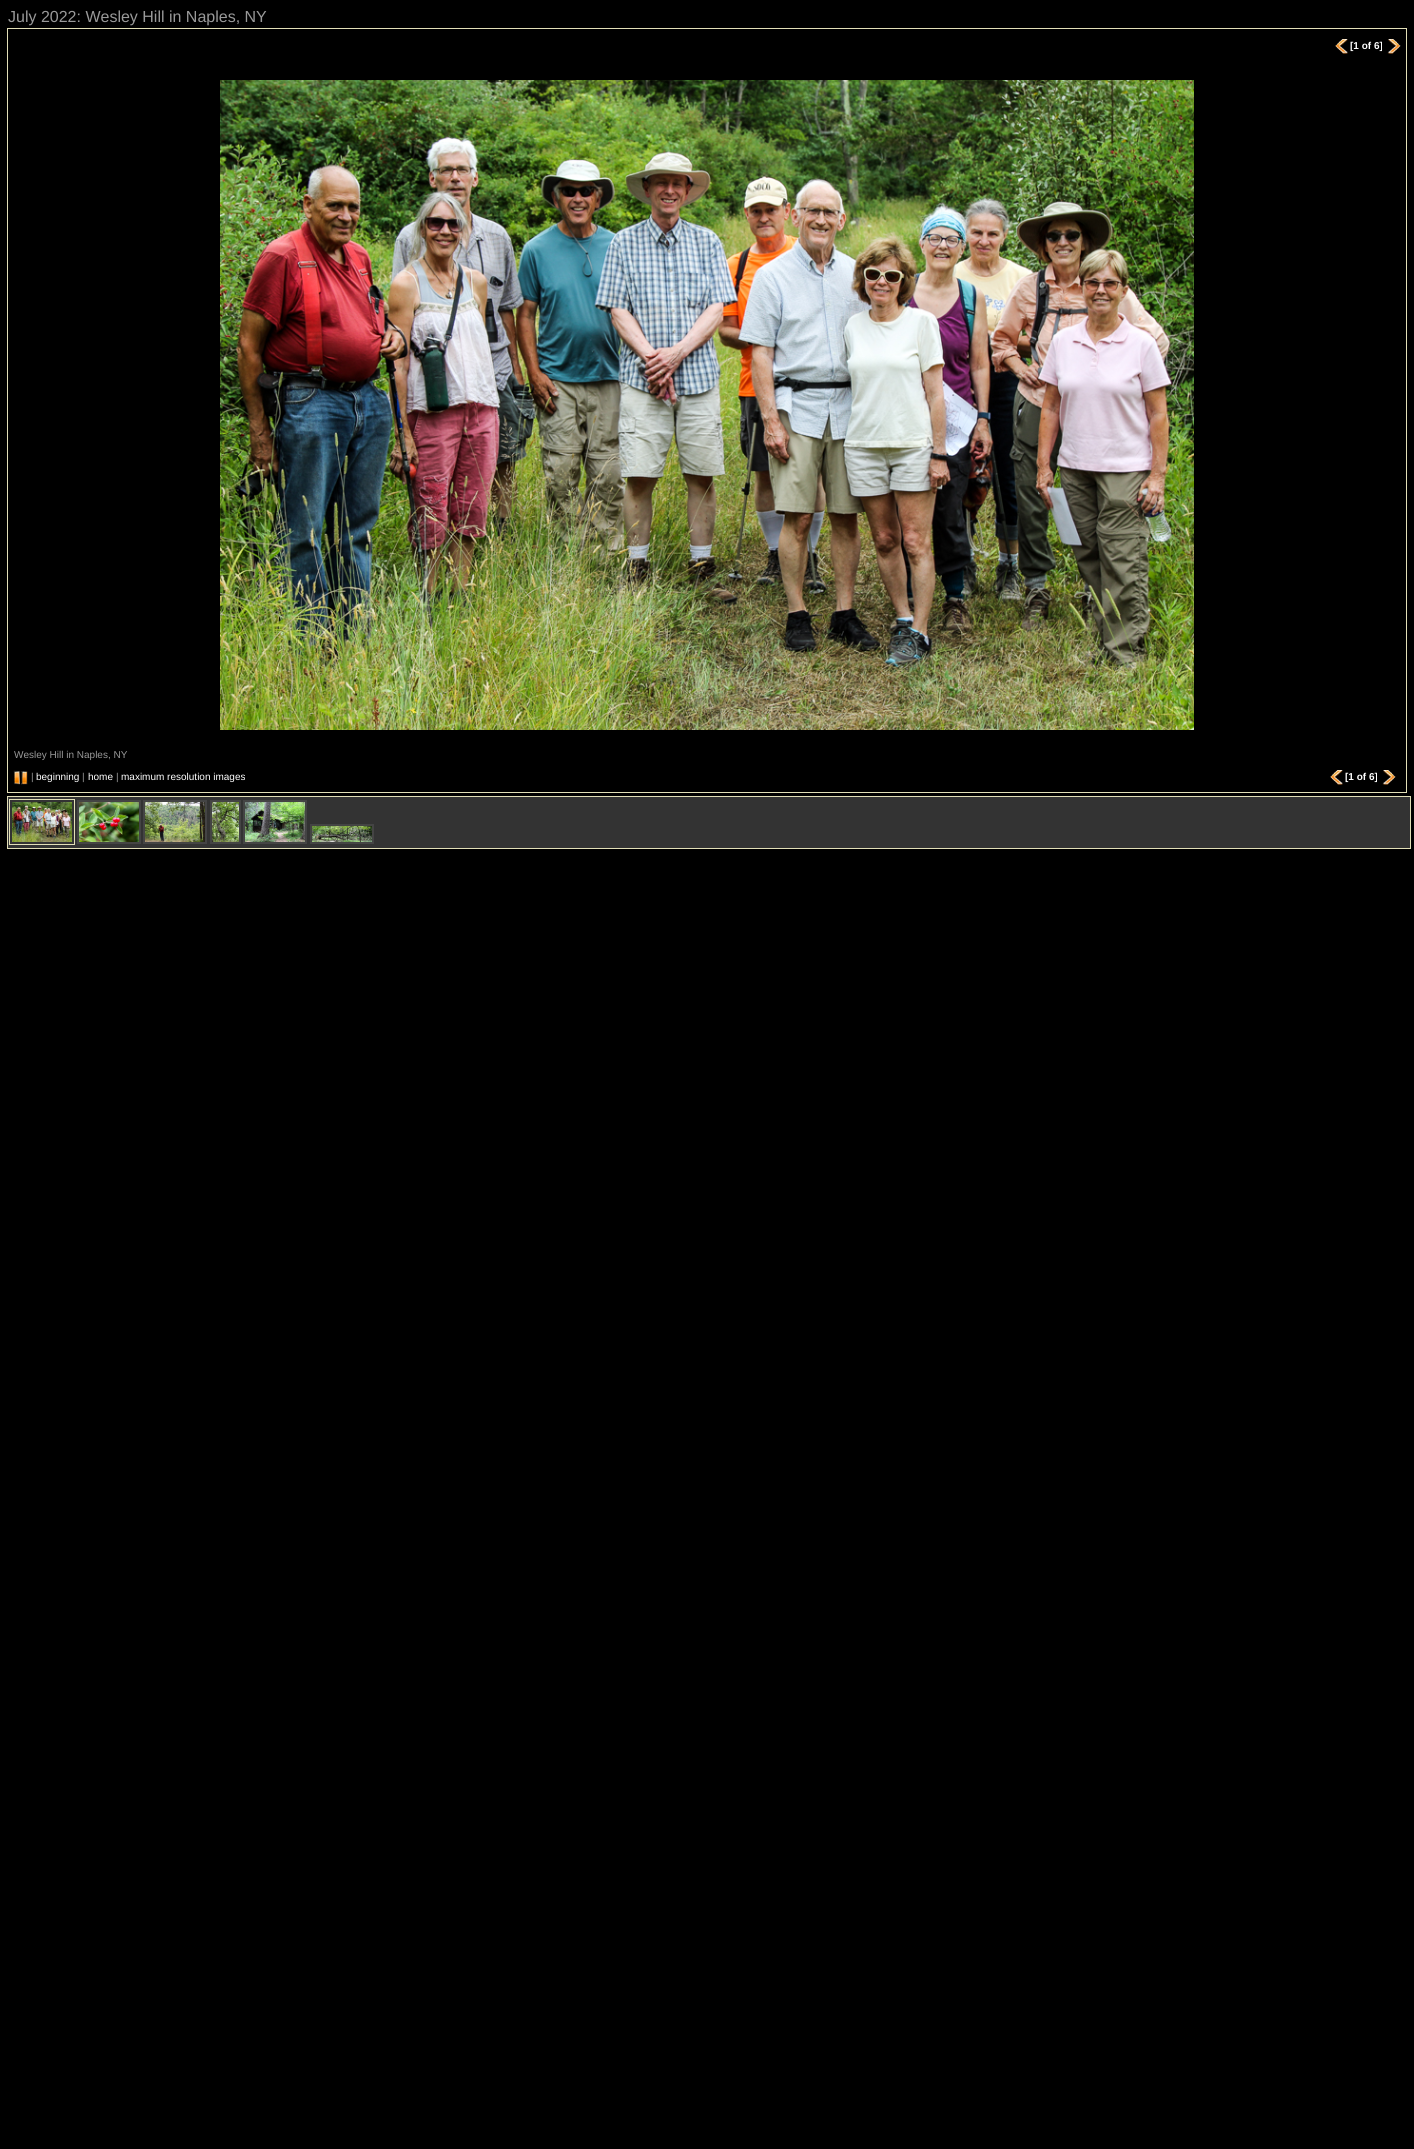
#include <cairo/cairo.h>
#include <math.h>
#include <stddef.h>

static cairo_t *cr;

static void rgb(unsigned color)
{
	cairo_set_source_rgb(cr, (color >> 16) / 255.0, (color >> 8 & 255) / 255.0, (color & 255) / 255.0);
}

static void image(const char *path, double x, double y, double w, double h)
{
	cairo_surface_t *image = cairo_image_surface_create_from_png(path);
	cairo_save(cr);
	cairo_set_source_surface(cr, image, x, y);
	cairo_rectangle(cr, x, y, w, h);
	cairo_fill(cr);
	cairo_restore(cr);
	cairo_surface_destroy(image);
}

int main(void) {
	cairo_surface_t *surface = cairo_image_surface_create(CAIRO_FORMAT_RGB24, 1414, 2149);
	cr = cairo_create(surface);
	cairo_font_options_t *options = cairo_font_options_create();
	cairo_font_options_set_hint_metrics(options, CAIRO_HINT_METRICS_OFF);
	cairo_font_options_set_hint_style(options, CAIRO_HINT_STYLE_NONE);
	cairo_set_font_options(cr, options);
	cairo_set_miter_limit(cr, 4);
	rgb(0x000000);
	cairo_paint(cr);
	image("img/1.png", 1335, 39, 13, 15);
	image("img/2.png", 1387, 39, 14, 15);
	image("img/3.png", 220, 80, 974, 650);
	image("img/4.png", 13, 770, 15, 15);
	image("img/1.png", 1330, 770, 13, 15);
	image("img/2.png", 1382, 770, 14, 15);
	cairo_rectangle(cr, 7.5, 28.5, 1399, 764);
	rgb(0xe2dfb7);
	cairo_set_line_width(cr, 1);
	cairo_stroke(cr);
	rgb(0x333333);
	cairo_rectangle(cr, 8, 797, 1402, 51);
	cairo_fill(cr);
	image("img/5.png", 12, 802, 60, 40);
	cairo_rectangle(cr, 9.5, 799.5, 65, 45);
	rgb(0xe2dfb7);
	cairo_stroke(cr);
	cairo_rectangle(cr, 78, 801, 62, 42);
	rgb(0x444444);
	cairo_set_line_width(cr, 2);
	cairo_stroke(cr);
	cairo_rectangle(cr, 144, 801, 62, 42);
	cairo_stroke(cr);
	cairo_rectangle(cr, 211, 801, 29, 42);
	cairo_stroke(cr);
	cairo_rectangle(cr, 244, 801, 62, 42);
	cairo_stroke(cr);
	image("img/6.png", 79, 802, 60, 40);
	image("img/7.png", 145, 802, 60, 40);
	image("img/8.png", 212, 802, 27, 40);
	image("img/9.png", 245, 802, 60, 40);
	cairo_rectangle(cr, 311, 825, 62, 18);
	cairo_stroke(cr);
	image("img/10.png", 312, 826, 60, 16);
	cairo_rectangle(cr, 7.5, 796.5, 1403, 52);
	rgb(0xe2dfb7);
	cairo_set_line_width(cr, 1);
	cairo_stroke(cr);
	cairo_select_font_face(cr, "Liberation Sans", CAIRO_FONT_SLANT_NORMAL, CAIRO_FONT_WEIGHT_NORMAL);
	cairo_set_font_size(cr, 16);
	rgb(0x999999);
	cairo_move_to(cr, 8, 22);
	cairo_show_text(cr, "July 2022: Wesley Hill in Naples, NY");
	cairo_select_font_face(cr, "Liberation Sans", CAIRO_FONT_SLANT_NORMAL, CAIRO_FONT_WEIGHT_BOLD);
	cairo_set_font_size(cr, 10);
	rgb(0xffffff);
	cairo_move_to(cr, 1350, 49);
	cairo_show_text(cr, "[1 of 6]");
	cairo_select_font_face(cr, "Liberation Sans", CAIRO_FONT_SLANT_NORMAL, CAIRO_FONT_WEIGHT_NORMAL);
	rgb(0x999999);
	cairo_move_to(cr, 14, 758);
	cairo_show_text(cr, "Wesley Hill in Naples, NY");
	cairo_move_to(cr, 31, 780);
	cairo_show_text(cr, "|");
	rgb(0xffffff);
	cairo_move_to(cr, 36, 780);
	cairo_show_text(cr, "beginning");
	rgb(0x999999);
	cairo_move_to(cr, 82, 780);
	cairo_show_text(cr, "|");
	rgb(0xffffff);
	cairo_move_to(cr, 88, 780);
	cairo_show_text(cr, "home");
	rgb(0x999999);
	cairo_move_to(cr, 116, 780);
	cairo_show_text(cr, "|");
	rgb(0xffffff);
	cairo_move_to(cr, 121, 780);
	cairo_show_text(cr, "maximum resolution images");
	cairo_select_font_face(cr, "Liberation Sans", CAIRO_FONT_SLANT_NORMAL, CAIRO_FONT_WEIGHT_BOLD);
	cairo_move_to(cr, 1345, 780);
	cairo_show_text(cr, "[1 of 6]");
	cairo_surface_write_to_png(surface, "page.png");
	cairo_font_options_destroy(options);
	cairo_destroy(cr);
	cairo_surface_destroy(surface);
	return 0;
}
